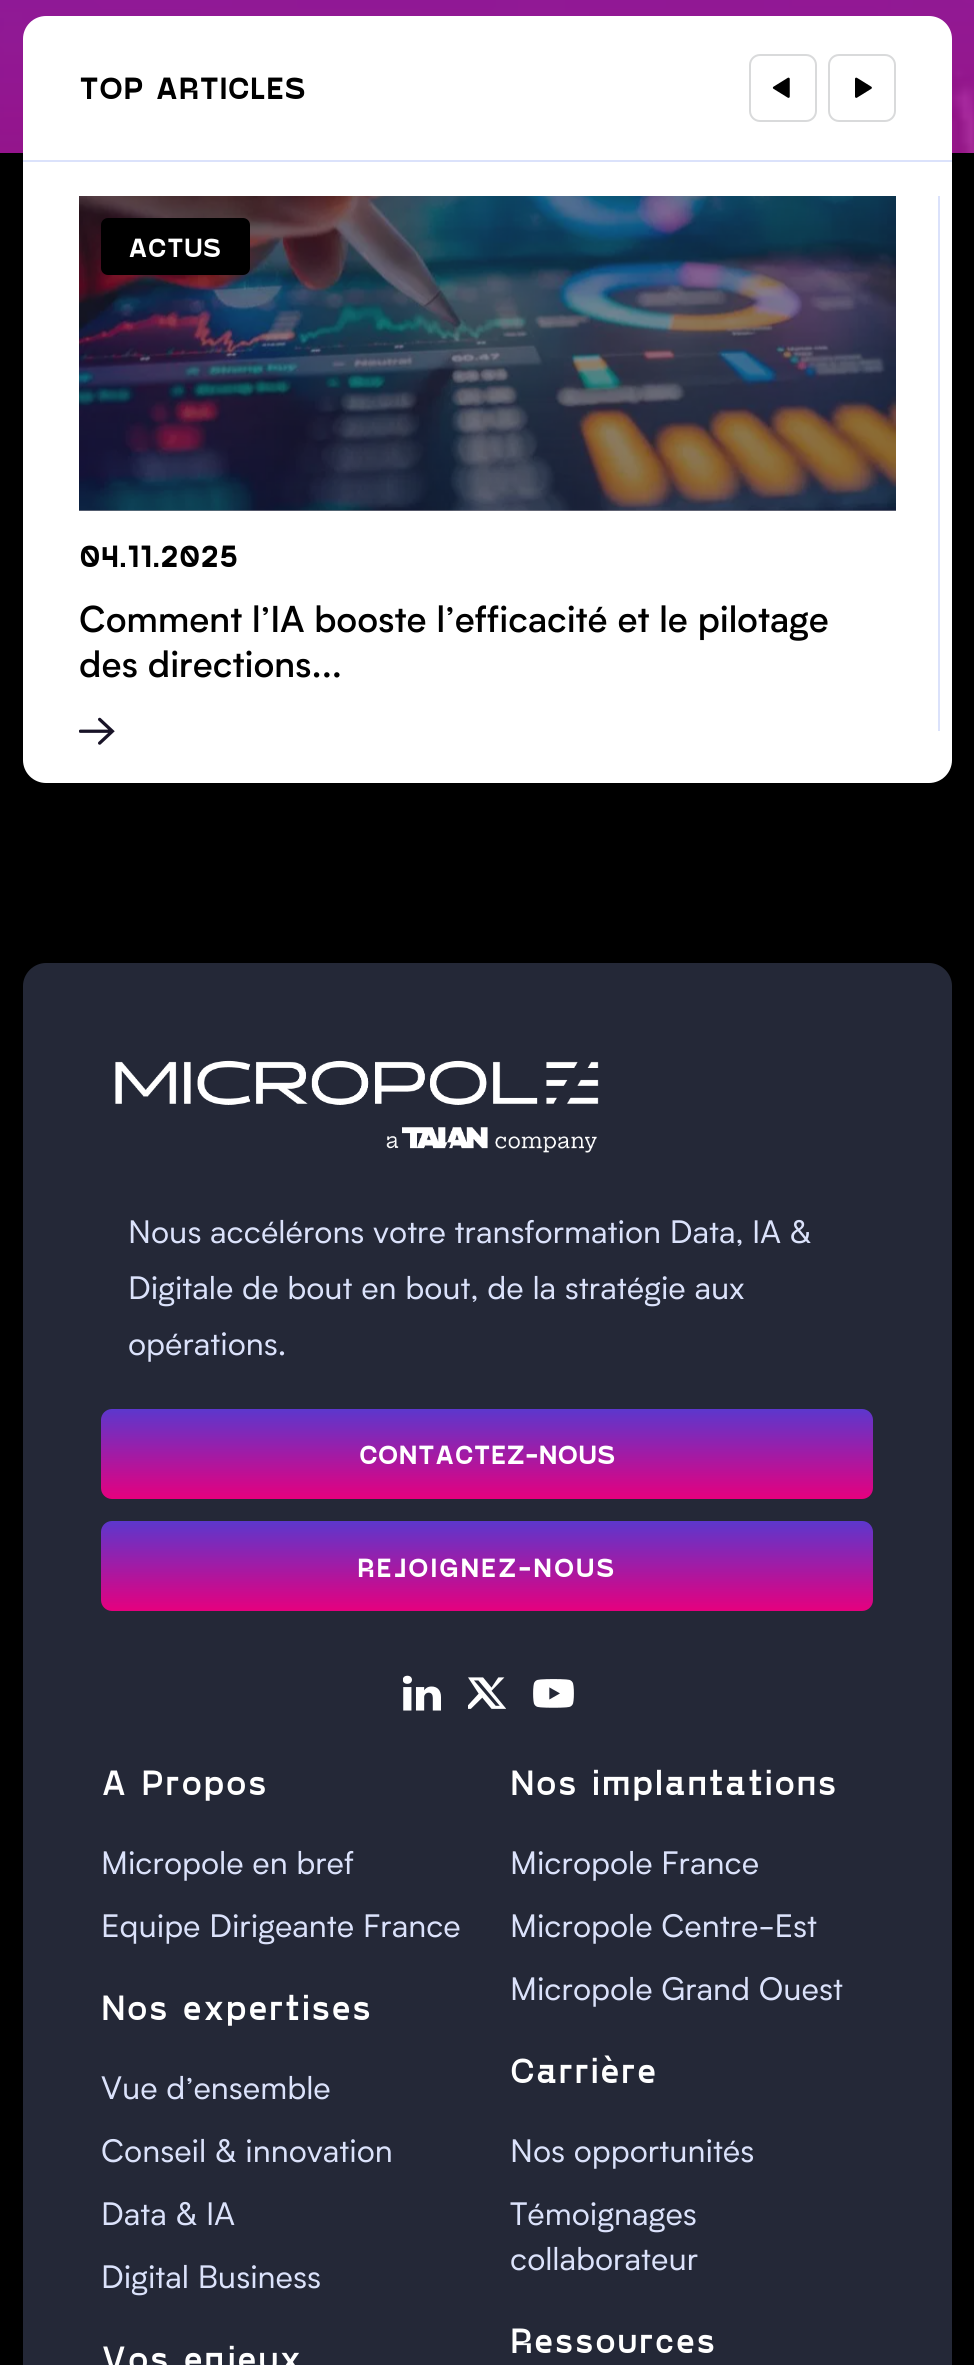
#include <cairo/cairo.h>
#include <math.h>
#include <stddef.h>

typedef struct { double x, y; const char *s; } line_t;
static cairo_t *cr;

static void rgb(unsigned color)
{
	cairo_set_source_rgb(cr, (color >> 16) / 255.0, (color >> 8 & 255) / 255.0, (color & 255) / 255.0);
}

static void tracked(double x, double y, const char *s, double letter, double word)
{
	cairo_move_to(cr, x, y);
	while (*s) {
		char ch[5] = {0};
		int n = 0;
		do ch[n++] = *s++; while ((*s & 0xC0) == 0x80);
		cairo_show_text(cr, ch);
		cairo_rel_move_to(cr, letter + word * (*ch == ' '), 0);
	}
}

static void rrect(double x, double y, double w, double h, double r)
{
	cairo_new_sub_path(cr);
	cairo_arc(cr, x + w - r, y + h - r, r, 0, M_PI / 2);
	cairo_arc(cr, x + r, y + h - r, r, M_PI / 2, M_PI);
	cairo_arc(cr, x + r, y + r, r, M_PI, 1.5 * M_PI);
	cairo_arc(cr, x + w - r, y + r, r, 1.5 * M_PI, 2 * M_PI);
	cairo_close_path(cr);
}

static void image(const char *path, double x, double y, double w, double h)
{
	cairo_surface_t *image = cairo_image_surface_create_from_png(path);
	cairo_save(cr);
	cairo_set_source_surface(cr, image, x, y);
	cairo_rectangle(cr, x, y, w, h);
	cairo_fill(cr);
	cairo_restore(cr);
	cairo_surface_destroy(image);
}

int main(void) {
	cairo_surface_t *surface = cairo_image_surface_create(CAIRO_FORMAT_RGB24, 974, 2365);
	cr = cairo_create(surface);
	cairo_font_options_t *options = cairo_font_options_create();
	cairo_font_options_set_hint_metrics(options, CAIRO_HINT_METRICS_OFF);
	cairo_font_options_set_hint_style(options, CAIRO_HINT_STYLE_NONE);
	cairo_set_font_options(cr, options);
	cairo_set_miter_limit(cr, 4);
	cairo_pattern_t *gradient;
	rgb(0xffffff);
	cairo_paint(cr);
	image("img/1.png", 0, 0, 974, 153);
	gradient = cairo_pattern_create_linear(487, -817, 487, 736);
	cairo_pattern_add_color_stop_rgba(gradient, 0, 0.361, 0.216, 0.804, 0.65);
	cairo_pattern_add_color_stop_rgba(gradient, 1, 0.902, 0, 0.494, 0.65);
	cairo_set_source(cr, gradient);
	cairo_pattern_destroy(gradient);
	cairo_rectangle(cr, 0, 0, 974, 153);
	cairo_fill(cr);
	rgb(0x000000);
	cairo_rectangle(cr, 0, 153, 974, 2212);
	cairo_fill(cr);
	rgb(0xffffff);
	rrect(23, 16, 929, 767, 23);
	cairo_fill(cr);
	rgb(0xdbe2fb);
	cairo_rectangle(cr, 23, 160, 929, 2);
	cairo_fill(cr);
	rrect(750, 55, 66, 66, 10);
	rgb(0xd9dadb);
	cairo_stroke(cr);
	image("img/2.png", 772, 77, 18, 21);
	rrect(829, 55, 66, 66, 10);
	cairo_stroke(cr);
	image("img/3.png", 855, 77, 17, 21);
	image("img/4.png", 79, 196, 817, 315);
	cairo_set_source_rgba(cr, 0.094, 0.075, 0.153, 0.5);
	cairo_rectangle(cr, 79, 196, 817, 315);
	cairo_fill(cr);
	rgb(0x000000);
	rrect(101, 218, 149, 57, 7);
	cairo_fill(cr);
	image("img/5.png", 79, 717, 36, 28);
	rgb(0xdbe2fb);
	cairo_rectangle(cr, 938, 196, 2, 535);
	cairo_fill(cr);
	rgb(0x242837);
	cairo_new_path(cr);
	cairo_move_to(cr, 46, 963);
	cairo_line_to(cr, 929, 963);
	cairo_curve_to(cr, 941.5, 963, 952, 973.5, 952, 986);
	cairo_line_to(cr, 952, 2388);
	cairo_line_to(cr, 23, 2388);
	cairo_line_to(cr, 23, 986);
	cairo_curve_to(cr, 23, 973.5, 33.5, 963, 46, 963);
	cairo_close_path(cr);
	cairo_fill(cr);
	image("img/6.png", 115, 1060, 484, 93);
	gradient = cairo_pattern_create_linear(487, 1409, 487, 1499);
	cairo_pattern_add_color_stop_rgba(gradient, 0, 0.361, 0.216, 0.804, 1);
	cairo_pattern_add_color_stop_rgba(gradient, 1, 0.902, 0, 0.494, 1);
	cairo_set_source(cr, gradient);
	cairo_pattern_destroy(gradient);
	rrect(101, 1409, 772, 90, 11);
	cairo_fill(cr);
	gradient = cairo_pattern_create_linear(487, 1521, 487, 1611);
	cairo_pattern_add_color_stop_rgba(gradient, 0, 0.361, 0.216, 0.804, 1);
	cairo_pattern_add_color_stop_rgba(gradient, 1, 0.902, 0, 0.494, 1);
	cairo_set_source(cr, gradient);
	cairo_pattern_destroy(gradient);
	rrect(101, 1521, 772, 90, 11);
	cairo_fill(cr);
	image("img/7.png", 403, 1675, 38, 36);
	image("img/8.png", 468, 1677, 38, 32);
	image("img/9.png", 533, 1679, 41, 29);
	cairo_select_font_face(cr, "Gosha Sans", CAIRO_FONT_SLANT_NORMAL, CAIRO_FONT_WEIGHT_BOLD);
	cairo_set_font_size(cr, 31.5);
	rgb(0x000000);
	cairo_move_to(cr, 79, 99);
	cairo_show_text(cr, "TOP ARTICLES");
	cairo_set_font_size(cr, 27);
	rgb(0xffffff);
	cairo_move_to(cr, 128, 257);
	cairo_show_text(cr, "ACTUS");
	cairo_set_font_size(cr, 31.5);
	rgb(0x000000);
	cairo_move_to(cr, 79, 567);
	cairo_show_text(cr, "04.11.2025");
	cairo_select_font_face(cr, "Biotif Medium", CAIRO_FONT_SLANT_NORMAL, CAIRO_FONT_WEIGHT_NORMAL);
	cairo_set_font_size(cr, 36);
	cairo_move_to(cr, 79, 632);
	cairo_show_text(cr, "Comment l’IA booste l’efficacité et le pilotage");
	cairo_move_to(cr, 79, 677);
	cairo_show_text(cr, "des directions...");
	cairo_select_font_face(cr, "Biotif", CAIRO_FONT_SLANT_NORMAL, CAIRO_FONT_WEIGHT_NORMAL);
	cairo_set_font_size(cr, 31.5);
	rgb(0xdbe2fb);
	{
		static const line_t items[] = {
			{128, 1243, "Nous accélérons votre transformation Data, IA &"},
			{128, 1299, "Digitale de bout en bout, de la stratégie aux"},
			{128, 1355, "opérations."},
		};
		for (size_t i = 0; i < sizeof items / sizeof *items; i++) {
			cairo_move_to(cr, items[i].x, items[i].y);
			cairo_show_text(cr, items[i].s);
		}
	}
	cairo_select_font_face(cr, "Gosha Sans", CAIRO_FONT_SLANT_NORMAL, CAIRO_FONT_WEIGHT_BOLD);
	cairo_set_font_size(cr, 27);
	rgb(0xffffff);
	cairo_move_to(cr, 359, 1464);
	cairo_show_text(cr, "CONTACTEZ-NOUS");
	tracked(357, 1577, "REJOIGNEZ-NOUS", 1.5, 0);
	cairo_select_font_face(cr, "Gosha Sans Medium", CAIRO_FONT_SLANT_NORMAL, CAIRO_FONT_WEIGHT_NORMAL);
	cairo_set_font_size(cr, 36);
	tracked(101, 1795, "A Propos", 1.1, 0);
	cairo_select_font_face(cr, "Biotif", CAIRO_FONT_SLANT_NORMAL, CAIRO_FONT_WEIGHT_NORMAL);
	cairo_set_font_size(cr, 31.5);
	rgb(0xdbe2fb);
	cairo_move_to(cr, 101, 1874);
	cairo_show_text(cr, "Micropole en bref");
	cairo_move_to(cr, 101, 1937);
	cairo_show_text(cr, "Equipe Dirigeante France");
	cairo_select_font_face(cr, "Gosha Sans Medium", CAIRO_FONT_SLANT_NORMAL, CAIRO_FONT_WEIGHT_NORMAL);
	cairo_set_font_size(cr, 36);
	rgb(0xffffff);
	tracked(101, 2020, "Nos expertises", 1.1, 0);
	cairo_select_font_face(cr, "Biotif", CAIRO_FONT_SLANT_NORMAL, CAIRO_FONT_WEIGHT_NORMAL);
	cairo_set_font_size(cr, 31.5);
	rgb(0xdbe2fb);
	{
		static const line_t items[] = {
			{101, 2099, "Vue d’ensemble"},
			{101, 2162, "Conseil & innovation"},
			{101, 2225, "Data & IA"},
			{101, 2288, "Digital Business"},
		};
		for (size_t i = 0; i < sizeof items / sizeof *items; i++) {
			cairo_move_to(cr, items[i].x, items[i].y);
			cairo_show_text(cr, items[i].s);
		}
	}
	cairo_select_font_face(cr, "Gosha Sans Medium", CAIRO_FONT_SLANT_NORMAL, CAIRO_FONT_WEIGHT_NORMAL);
	cairo_set_font_size(cr, 36);
	rgb(0xffffff);
	tracked(101, 2371, "Vos enjeux", 1.1, 0);
	tracked(510, 1795, "Nos implantations", 1.1, 0);
	cairo_select_font_face(cr, "Biotif", CAIRO_FONT_SLANT_NORMAL, CAIRO_FONT_WEIGHT_NORMAL);
	cairo_set_font_size(cr, 31.5);
	rgb(0xdbe2fb);
	{
		static const line_t items[] = {
			{510, 1874, "Micropole France"},
			{510, 1937, "Micropole Centre-Est"},
			{510, 2000, "Micropole Grand Ouest"},
		};
		for (size_t i = 0; i < sizeof items / sizeof *items; i++) {
			cairo_move_to(cr, items[i].x, items[i].y);
			cairo_show_text(cr, items[i].s);
		}
	}
	cairo_select_font_face(cr, "Gosha Sans Medium", CAIRO_FONT_SLANT_NORMAL, CAIRO_FONT_WEIGHT_NORMAL);
	cairo_set_font_size(cr, 36);
	rgb(0xffffff);
	tracked(510, 2083, "Carrière", 1.1, 0);
	cairo_select_font_face(cr, "Biotif", CAIRO_FONT_SLANT_NORMAL, CAIRO_FONT_WEIGHT_NORMAL);
	cairo_set_font_size(cr, 31.5);
	rgb(0xdbe2fb);
	{
		static const line_t items[] = {
			{510, 2162, "Nos opportunités"},
			{510, 2225, "Témoignages"},
			{510, 2270, "collaborateur"},
		};
		for (size_t i = 0; i < sizeof items / sizeof *items; i++) {
			cairo_move_to(cr, items[i].x, items[i].y);
			cairo_show_text(cr, items[i].s);
		}
	}
	cairo_select_font_face(cr, "Gosha Sans Medium", CAIRO_FONT_SLANT_NORMAL, CAIRO_FONT_WEIGHT_NORMAL);
	cairo_set_font_size(cr, 36);
	rgb(0xffffff);
	tracked(510, 2353, "Ressources", 1.1, 0);
	cairo_surface_write_to_png(surface, "page.png");
	cairo_font_options_destroy(options);
	cairo_destroy(cr);
	cairo_surface_destroy(surface);
	return 0;
}
